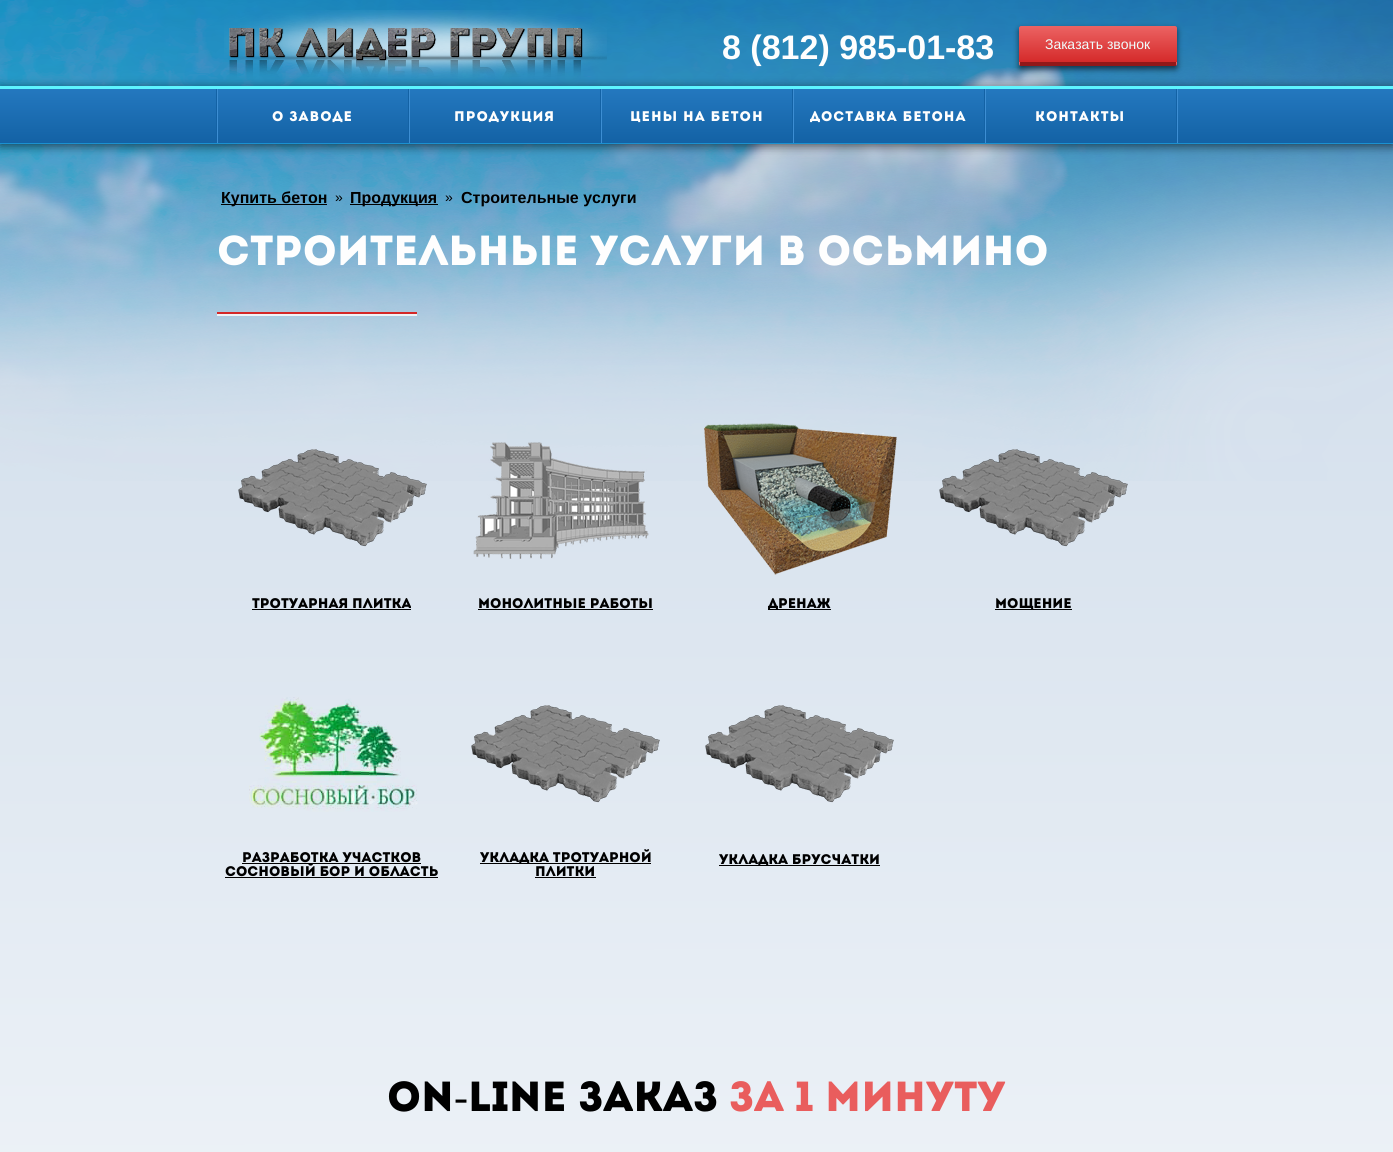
#include <cairo/cairo.h>
#include <math.h>
#include <stddef.h>

typedef struct { double x, y; const char *s; } line_t;
typedef struct { double x, y, w, h; unsigned color; } box_t;
static cairo_t *cr;

static void rgb(unsigned color)
{
	cairo_set_source_rgb(cr, (color >> 16) / 255.0, (color >> 8 & 255) / 255.0, (color & 255) / 255.0);
}

static void tracked(double x, double y, const char *s, double letter, double word)
{
	cairo_move_to(cr, x, y);
	while (*s) {
		char ch[5] = {0};
		int n = 0;
		do ch[n++] = *s++; while ((*s & 0xC0) == 0x80);
		cairo_show_text(cr, ch);
		cairo_rel_move_to(cr, letter + word * (*ch == ' '), 0);
	}
}

static void rrect(double x, double y, double w, double h, double r)
{
	cairo_new_sub_path(cr);
	cairo_arc(cr, x + w - r, y + h - r, r, 0, M_PI / 2);
	cairo_arc(cr, x + r, y + h - r, r, M_PI / 2, M_PI);
	cairo_arc(cr, x + r, y + r, r, M_PI, 1.5 * M_PI);
	cairo_arc(cr, x + w - r, y + r, r, 1.5 * M_PI, 2 * M_PI);
	cairo_close_path(cr);
}

static void soft_shadow(double x, double y, double w, double h, double r, double blur, double alpha)
{
	cairo_push_group_with_content(cr, CAIRO_CONTENT_ALPHA);
	cairo_set_operator(cr, CAIRO_OPERATOR_SOURCE);
	for (int i = 15; i >= -15 && fmin(w, h) + blur * i / 3 > 0; i -= 2) {
		double e = blur * i / 6;
		cairo_set_source_rgba(cr, 0, 0, 0, alpha * erfc((i - 1) / 8.5) / 2);
		rrect(x - e, y - e, w + 2 * e, h + 2 * e, fmax(0, fmin(r + e + blur * .6, fmin(w, h) / 2 + e)));
		cairo_fill(cr);
	}
	cairo_pattern_t *soft = cairo_pop_group(cr);
	cairo_mask(cr, soft);
	cairo_pattern_destroy(soft);
}

static void image(const char *path, double x, double y, double w, double h)
{
	cairo_surface_t *image = cairo_image_surface_create_from_png(path);
	cairo_save(cr);
	cairo_set_source_surface(cr, image, x, y);
	cairo_rectangle(cr, x, y, w, h);
	cairo_fill(cr);
	cairo_restore(cr);
	cairo_surface_destroy(image);
}

int main(void) {
	cairo_surface_t *surface = cairo_image_surface_create(CAIRO_FORMAT_RGB24, 1393, 1152);
	cr = cairo_create(surface);
	cairo_font_options_t *options = cairo_font_options_create();
	cairo_font_options_set_hint_metrics(options, CAIRO_HINT_METRICS_OFF);
	cairo_font_options_set_hint_style(options, CAIRO_HINT_STYLE_NONE);
	cairo_set_font_options(cr, options);
	cairo_set_miter_limit(cr, 4);
	cairo_pattern_t *gradient;
	rgb(0xffffff);
	cairo_paint(cr);
	gradient = cairo_pattern_create_linear(696, 0, 697, 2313);
	cairo_pattern_add_color_stop_rgba(gradient, 0, 0.796, 0.851, 0.91, 1);
	cairo_pattern_add_color_stop_rgba(gradient, 0.8, 1, 1, 1, 1);
	cairo_set_source(cr, gradient);
	cairo_pattern_destroy(gradient);
	cairo_rectangle(cr, 0, 0, 1393, 1152);
	cairo_fill(cr);
	image("img/1.png", 0, 0, 1393, 481);
	image("img/2.png", 224, 10, 383, 69);
	rgb(0x000000);
	soft_shadow(1019, 29, 158, 40, 2, 3, 0.6);
	gradient = cairo_pattern_create_linear(1098, 26, 1098, 62);
	cairo_pattern_add_color_stop_rgba(gradient, 0, 0.925, 0.388, 0.388, 1);
	cairo_pattern_add_color_stop_rgba(gradient, 1, 0.835, 0.165, 0.165, 1);
	cairo_set_source(cr, gradient);
	cairo_pattern_destroy(gradient);
	cairo_new_path(cr);
	cairo_move_to(cr, 1021, 26);
	cairo_line_to(cr, 1175, 26);
	cairo_curve_to(cr, 1176, 26, 1177, 27, 1177, 28);
	cairo_line_to(cr, 1177, 62);
	cairo_line_to(cr, 1019, 62);
	cairo_line_to(cr, 1019, 28);
	cairo_curve_to(cr, 1019, 27, 1020, 26, 1021, 26);
	cairo_close_path(cr);
	cairo_fill(cr);
	gradient = cairo_pattern_create_linear(1098, 62, 1098, 98);
	cairo_pattern_add_color_stop_rgba(gradient, 0, 0.925, 0.388, 0.388, 1);
	cairo_pattern_add_color_stop_rgba(gradient, 1, 0.835, 0.165, 0.165, 1);
	cairo_set_source(cr, gradient);
	cairo_pattern_destroy(gradient);
	cairo_new_path(cr);
	cairo_move_to(cr, 1019, 62);
	cairo_line_to(cr, 1177, 62);
	cairo_line_to(cr, 1177, 64);
	cairo_curve_to(cr, 1177, 65, 1176, 66, 1175, 66);
	cairo_line_to(cr, 1021, 66);
	cairo_curve_to(cr, 1020, 66, 1019, 65, 1019, 64);
	cairo_close_path(cr);
	cairo_fill(cr);
	rgb(0x921819);
	cairo_rectangle(cr, 1020, 62, 156, 4);
	cairo_fill(cr);
	rgb(0x000000);
	soft_shadow(0, 88, 1393, 58, 0, 5, 0.6);
	gradient = cairo_pattern_create_linear(697, 89, 697, 143);
	cairo_pattern_add_color_stop_rgba(gradient, 0, 0.141, 0.471, 0.749, 1);
	cairo_pattern_add_color_stop_rgba(gradient, 1, 0.075, 0.384, 0.647, 1);
	cairo_set_source(cr, gradient);
	cairo_pattern_destroy(gradient);
	cairo_rectangle(cr, 0, 89, 1393, 54);
	cairo_fill(cr);
	{
		static const box_t items[] = {
			{0, 86, 1393, 3, 0x5df4ff},
			{0, 143, 1393, 1, 0x1b91d1},
			{408, 89, 1, 54, 0x1362a5},
			{217, 89, 1, 54, 0x3d8ed3},
			{216, 89, 1, 54, 0x1362a5},
			{600, 89, 1, 54, 0x1362a5},
			{409, 89, 1, 54, 0x3d8ed3},
			{792, 89, 1, 54, 0x1362a5},
			{601, 89, 1, 54, 0x3d8ed3},
			{984, 89, 1, 54, 0x1362a5},
			{793, 89, 1, 54, 0x3d8ed3},
			{1176, 89, 1, 54, 0x1362a5},
			{985, 89, 1, 54, 0x3d8ed3},
			{1177, 89, 1, 54, 0x3d8ed3},
			{221, 204, 106, 1, 0x000000},
			{350, 204, 88, 1, 0x000000},
			{217, 312, 200, 2, 0xd42828},
			{217, 314, 200, 2, 0xeff3f7},
		};
		for (size_t i = 0; i < sizeof items / sizeof *items; i++) {
			rgb(items[i].color);
			cairo_rectangle(cr, items[i].x, items[i].y, items[i].w, items[i].h);
			cairo_fill(cr);
		}
	}
	image("img/3.png", 238, 449, 189, 98);
	rgb(0x000000);
	cairo_rectangle(cr, 252, 609, 159, 1);
	cairo_fill(cr);
	image("img/4.png", 473, 442, 176, 117);
	cairo_rectangle(cr, 478, 609, 175, 1);
	cairo_fill(cr);
	image("img/5.png", 704, 423, 193, 152);
	cairo_rectangle(cr, 768, 609, 63, 1);
	cairo_fill(cr);
	image("img/6.png", 939, 449, 189, 98);
	cairo_rectangle(cr, 995, 609, 77, 1);
	cairo_fill(cr);
	image("img/7.png", 249, 697, 169, 115);
	cairo_rectangle(cr, 242, 863, 179, 1);
	cairo_fill(cr);
	cairo_rectangle(cr, 225, 877, 213, 1);
	cairo_fill(cr);
	image("img/8.png", 471, 705, 189, 98);
	cairo_rectangle(cr, 480, 863, 171, 1);
	cairo_fill(cr);
	cairo_rectangle(cr, 535, 877, 61, 1);
	cairo_fill(cr);
	image("img/9.png", 705, 705, 189, 98);
	cairo_rectangle(cr, 719, 865, 161, 1);
	cairo_fill(cr);
	cairo_select_font_face(cr, "Liberation Sans", CAIRO_FONT_SLANT_NORMAL, CAIRO_FONT_WEIGHT_BOLD);
	cairo_set_font_size(cr, 34);
	rgb(0xfefefe);
	cairo_move_to(cr, 722, 59);
	cairo_show_text(cr, "8 (812) 985-01-83");
	cairo_select_font_face(cr, "Liberation Sans", CAIRO_FONT_SLANT_NORMAL, CAIRO_FONT_WEIGHT_NORMAL);
	cairo_set_font_size(cr, 14);
	rgb(0xeffdfd);
	cairo_move_to(cr, 1045, 49);
	cairo_show_text(cr, "Заказать звонок");
	cairo_select_font_face(cr, "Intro", CAIRO_FONT_SLANT_NORMAL, CAIRO_FONT_WEIGHT_NORMAL);
	rgb(0xfefefe);
	{
		static const line_t items[] = {
			{272, 121, "О заводе"},
			{454, 121, "Продукция"},
			{630, 121, "Цены на бетон"},
			{810, 121, "Доставка бетона"},
			{1035, 121, "Контакты"},
		};
		for (size_t i = 0; i < sizeof items / sizeof *items; i++) {
			tracked(items[i].x, items[i].y, items[i].s, 1, 0);
		}
	}
	cairo_select_font_face(cr, "Liberation Sans", CAIRO_FONT_SLANT_NORMAL, CAIRO_FONT_WEIGHT_BOLD);
	cairo_set_font_size(cr, 16);
	rgb(0x000000);
	cairo_move_to(cr, 221, 203);
	cairo_show_text(cr, "Купить бетон");
	cairo_select_font_face(cr, "Liberation Sans", CAIRO_FONT_SLANT_NORMAL, CAIRO_FONT_WEIGHT_NORMAL);
	cairo_set_font_size(cr, 14);
	cairo_move_to(cr, 335, 202);
	cairo_show_text(cr, "»");
	cairo_select_font_face(cr, "Liberation Sans", CAIRO_FONT_SLANT_NORMAL, CAIRO_FONT_WEIGHT_BOLD);
	cairo_set_font_size(cr, 16);
	cairo_move_to(cr, 350, 203);
	cairo_show_text(cr, "Продукция");
	cairo_select_font_face(cr, "Liberation Sans", CAIRO_FONT_SLANT_NORMAL, CAIRO_FONT_WEIGHT_NORMAL);
	cairo_set_font_size(cr, 14);
	cairo_move_to(cr, 445, 202);
	cairo_show_text(cr, "»");
	cairo_select_font_face(cr, "Liberation Sans", CAIRO_FONT_SLANT_NORMAL, CAIRO_FONT_WEIGHT_BOLD);
	cairo_set_font_size(cr, 16);
	cairo_move_to(cr, 461, 203);
	cairo_show_text(cr, "Строительные услуги");
	cairo_select_font_face(cr, "Intro", CAIRO_FONT_SLANT_NORMAL, CAIRO_FONT_WEIGHT_NORMAL);
	cairo_set_font_size(cr, 42);
	rgb(0xfefefe);
	cairo_move_to(cr, 217, 265);
	cairo_show_text(cr, "Строительные услуги в Осьмино");
	cairo_set_font_size(cr, 14);
	rgb(0x000000);
	{
		static const line_t items[] = {
			{252, 608, "Тротуарная плитка"},
			{478, 608, "Монолитные работы"},
			{768, 608, "Дренаж"},
			{995, 608, "Мощение"},
			{242, 862, "Разработка участков"},
			{225, 876, "Сосновый Бор и область"},
			{480, 862, "Укладка тротуарной"},
			{535, 876, "плитки"},
			{719, 864, "Укладка брусчатки"},
		};
		for (size_t i = 0; i < sizeof items / sizeof *items; i++) {
			cairo_move_to(cr, items[i].x, items[i].y);
			cairo_show_text(cr, items[i].s);
		}
	}
	cairo_set_font_size(cr, 42);
	cairo_move_to(cr, 387, 1111);
	cairo_show_text(cr, "ON");
	cairo_select_font_face(cr, "Liberation Serif", CAIRO_FONT_SLANT_NORMAL, CAIRO_FONT_WEIGHT_NORMAL);
	cairo_move_to(cr, 454, 1111);
	cairo_show_text(cr, "-");
	cairo_select_font_face(cr, "Intro", CAIRO_FONT_SLANT_NORMAL, CAIRO_FONT_WEIGHT_NORMAL);
	cairo_move_to(cr, 468, 1111);
	cairo_show_text(cr, "LINE заказ");
	rgb(0xe95d5d);
	cairo_move_to(cr, 729, 1111);
	cairo_show_text(cr, "за 1 минуту");
	cairo_surface_write_to_png(surface, "page.png");
	cairo_font_options_destroy(options);
	cairo_destroy(cr);
	cairo_surface_destroy(surface);
	return 0;
}
